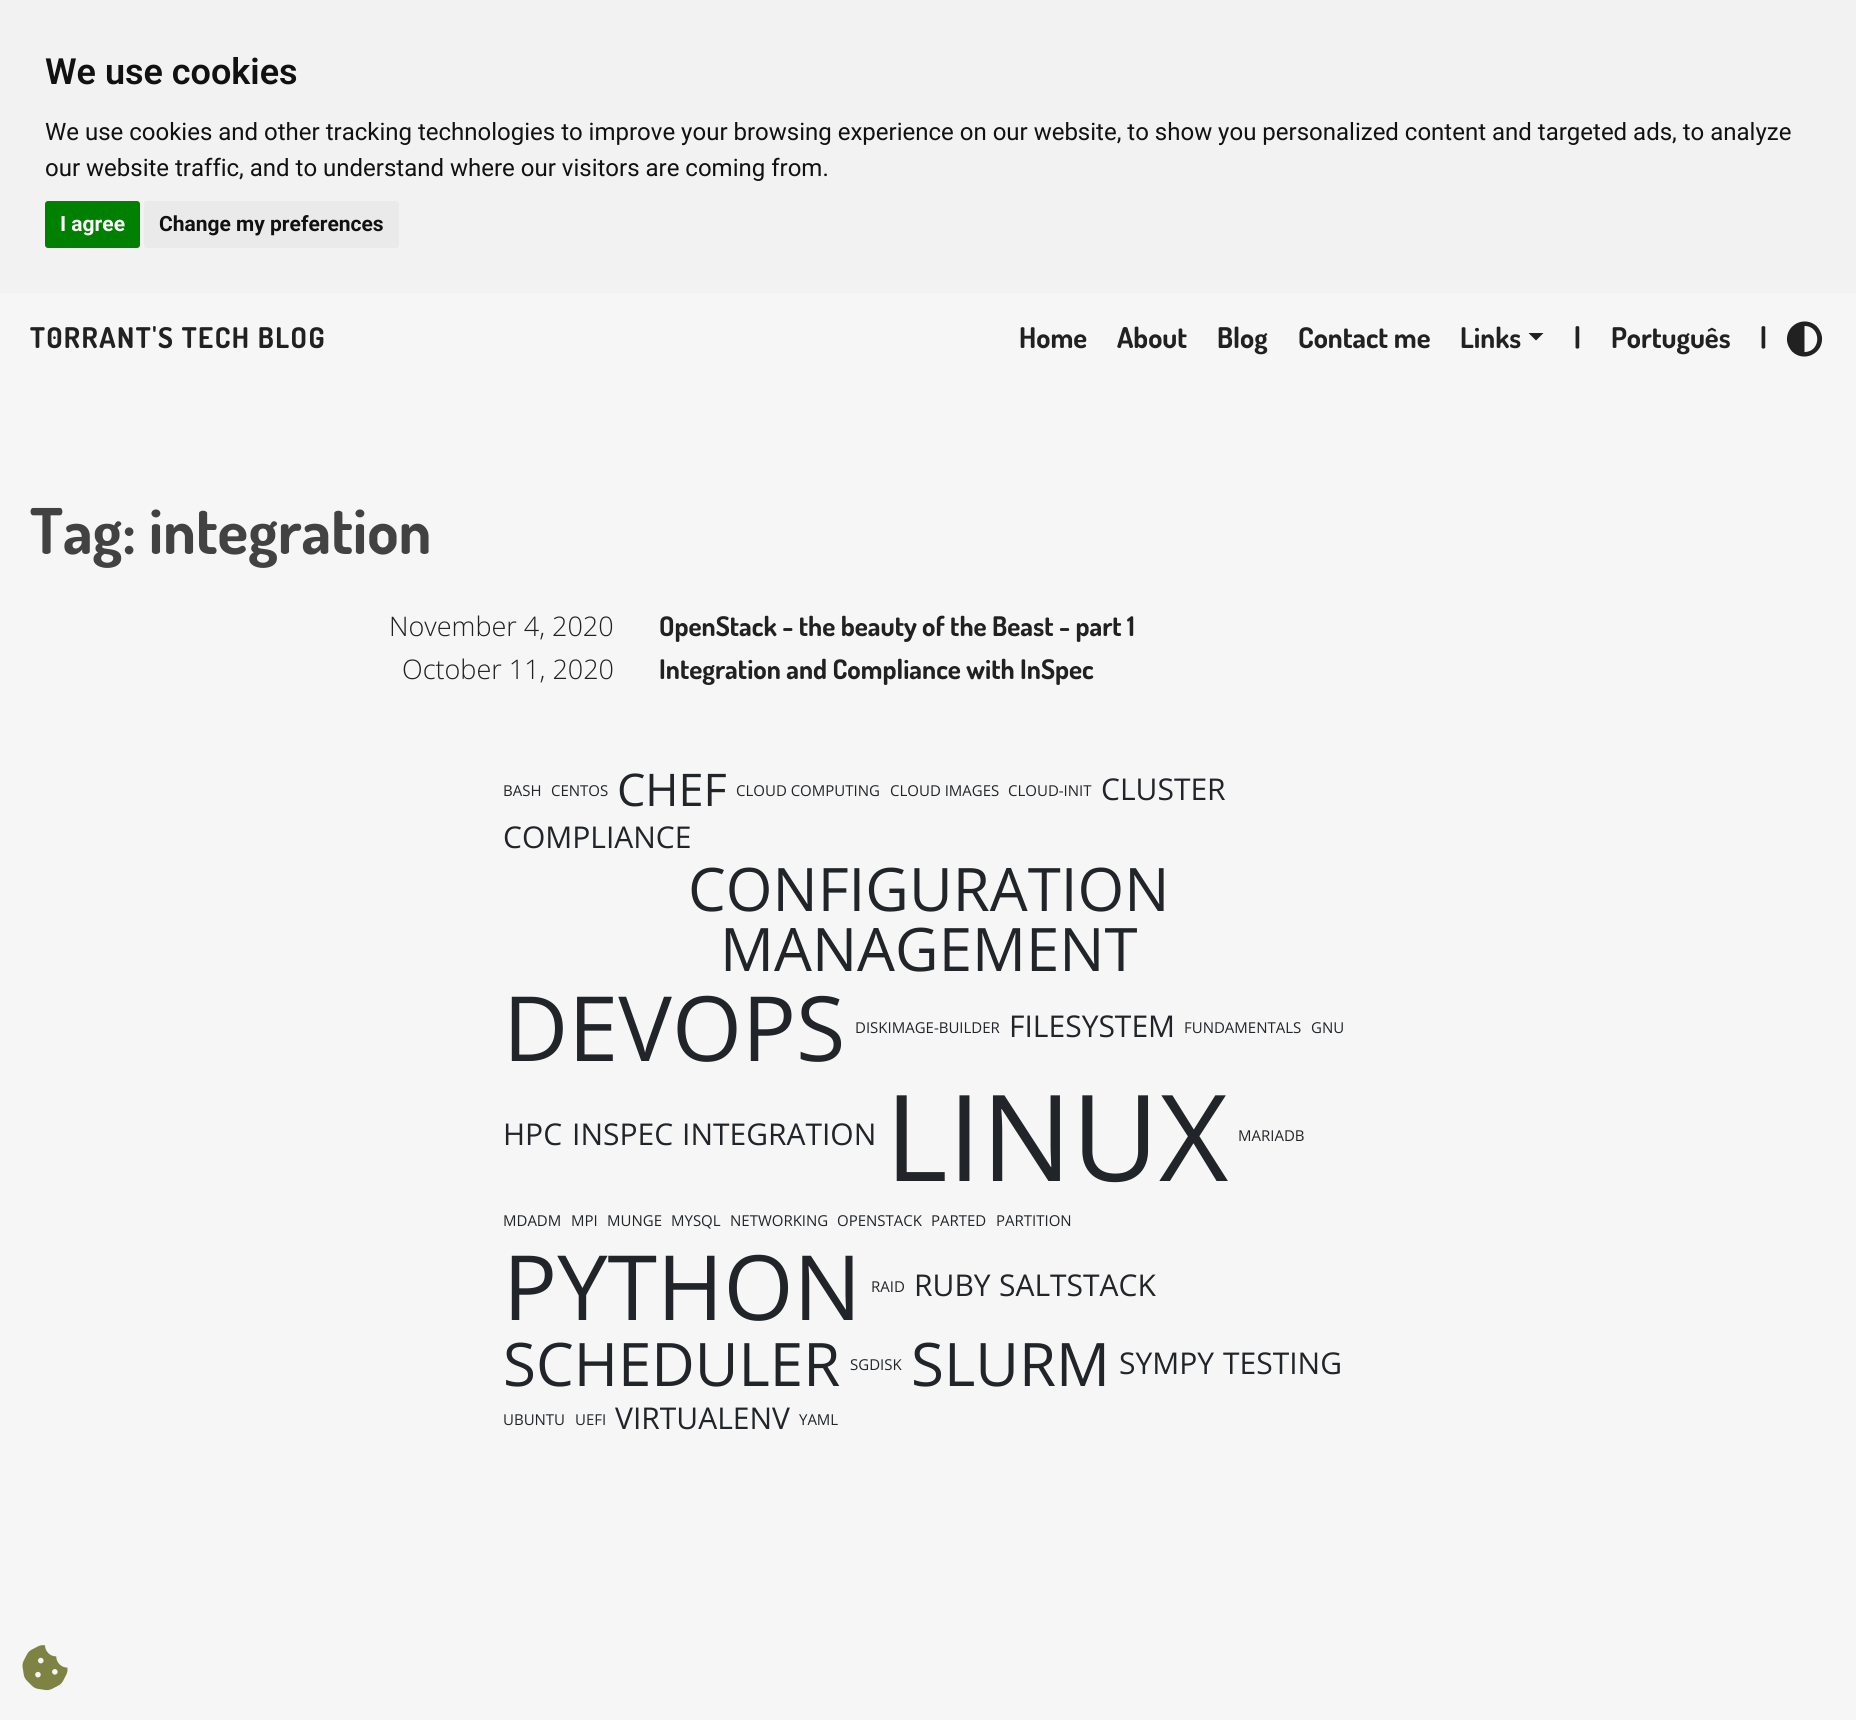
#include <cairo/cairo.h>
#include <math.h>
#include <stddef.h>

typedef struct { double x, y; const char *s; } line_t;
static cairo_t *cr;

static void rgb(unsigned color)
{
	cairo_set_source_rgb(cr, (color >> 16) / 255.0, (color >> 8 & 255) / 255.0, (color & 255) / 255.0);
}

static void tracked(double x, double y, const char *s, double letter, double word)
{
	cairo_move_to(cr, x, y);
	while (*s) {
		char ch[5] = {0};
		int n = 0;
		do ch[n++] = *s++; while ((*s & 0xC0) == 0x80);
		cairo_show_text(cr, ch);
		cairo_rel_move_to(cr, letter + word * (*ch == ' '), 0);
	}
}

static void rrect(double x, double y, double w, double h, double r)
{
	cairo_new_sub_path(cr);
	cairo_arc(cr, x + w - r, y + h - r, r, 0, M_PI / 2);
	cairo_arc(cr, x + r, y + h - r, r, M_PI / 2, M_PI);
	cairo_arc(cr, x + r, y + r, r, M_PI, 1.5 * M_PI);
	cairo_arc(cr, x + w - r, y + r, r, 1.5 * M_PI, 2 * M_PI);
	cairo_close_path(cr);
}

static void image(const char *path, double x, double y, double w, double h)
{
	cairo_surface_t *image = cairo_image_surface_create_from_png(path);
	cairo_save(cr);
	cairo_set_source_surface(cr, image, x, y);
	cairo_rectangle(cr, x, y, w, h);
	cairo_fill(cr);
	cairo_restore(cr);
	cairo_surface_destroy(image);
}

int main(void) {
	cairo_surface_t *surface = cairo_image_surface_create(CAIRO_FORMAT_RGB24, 1856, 1720);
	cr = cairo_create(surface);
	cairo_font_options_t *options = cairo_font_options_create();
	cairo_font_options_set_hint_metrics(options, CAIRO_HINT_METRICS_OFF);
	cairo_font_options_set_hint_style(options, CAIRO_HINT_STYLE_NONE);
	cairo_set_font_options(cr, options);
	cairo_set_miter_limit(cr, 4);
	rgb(0xf6f6f6);
	cairo_paint(cr);
	rgb(0xf2f2f2);
	cairo_rectangle(cr, 0, 0, 1856, 293);
	cairo_fill(cr);
	rgb(0x008000);
	rrect(45, 201, 95, 47, 3);
	cairo_fill(cr);
	rgb(0xeaeaea);
	rrect(144, 201, 255, 47, 3);
	cairo_fill(cr);
	rgb(0x212121);
	cairo_new_path(cr);
	cairo_move_to(cr, 1528.5, 333);
	cairo_line_to(cr, 1543.5, 333);
	cairo_line_to(cr, 1536, 340.5);
	cairo_close_path(cr);
	cairo_fill(cr);
	cairo_new_path(cr);
	cairo_move_to(cr, 1792, 351.5);
	cairo_curve_to(cr, 1789.5, 348.5, 1787.5, 345, 1787, 341);
	cairo_curve_to(cr, 1785.5, 324.5, 1805, 315, 1817, 326.5);
	cairo_curve_to(cr, 1819.5, 329.5, 1821.5, 333, 1822, 337);
	cairo_curve_to(cr, 1823.5, 353.5, 1804, 363, 1792, 351.5);
	cairo_close_path(cr);
	cairo_move_to(cr, 1804.5, 352);
	cairo_curve_to(cr, 1821.5, 352, 1821.5, 326, 1804.5, 326);
	cairo_close_path(cr);
	cairo_fill(cr);
	image("img/1.png", 22, 1645, 46, 46);
	cairo_select_font_face(cr, "Roboto SemiBold", CAIRO_FONT_SLANT_NORMAL, CAIRO_FONT_WEIGHT_NORMAL);
	cairo_set_font_size(cr, 36);
	rgb(0x111111);
	cairo_move_to(cr, 45, 84);
	cairo_show_text(cr, "We use cookies");
	cairo_select_font_face(cr, "Roboto", CAIRO_FONT_SLANT_NORMAL, CAIRO_FONT_WEIGHT_NORMAL);
	cairo_set_font_size(cr, 24);
	cairo_move_to(cr, 45, 140);
	cairo_show_text(cr, "We use cookies and other tracking technologies to improve your browsing experience on our website, to show you personalized content and targeted ads, to analyze");
	cairo_move_to(cr, 45, 176);
	cairo_show_text(cr, "our website traffic, and to understand where our visitors are coming from.");
	cairo_select_font_face(cr, "Roboto", CAIRO_FONT_SLANT_NORMAL, CAIRO_FONT_WEIGHT_BOLD);
	cairo_set_font_size(cr, 21);
	rgb(0xffffff);
	cairo_move_to(cr, 60, 231);
	cairo_show_text(cr, "I agree");
	rgb(0x111111);
	cairo_move_to(cr, 159, 231);
	cairo_show_text(cr, "Change my preferences");
	cairo_select_font_face(cr, "Dosis", CAIRO_FONT_SLANT_NORMAL, CAIRO_FONT_WEIGHT_BOLD);
	cairo_set_font_size(cr, 28.5);
	rgb(0x212121);
	tracked(30, 348, "T0RRANT'S TECH BLOG", 1.5, 0);
	{
		static const line_t items[] = {
			{1019, 348, "Home"},
			{1117, 348, "About"},
			{1217, 348, "Blog"},
			{1298, 348, "Contact me"},
			{1460, 348, "Links"},
			{1574, 348, "|"},
			{1611, 348, "Português"},
			{1760, 348, "|"},
		};
		for (size_t i = 0; i < sizeof items / sizeof *items; i++) {
			cairo_move_to(cr, items[i].x, items[i].y);
			cairo_show_text(cr, items[i].s);
		}
	}
	cairo_set_font_size(cr, 63);
	rgb(0x424242);
	cairo_move_to(cr, 30, 554);
	cairo_show_text(cr, "Tag: integration");
	cairo_select_font_face(cr, "Open Sans Light", CAIRO_FONT_SLANT_NORMAL, CAIRO_FONT_WEIGHT_NORMAL);
	cairo_set_font_size(cr, 27);
	rgb(0x212121);
	cairo_move_to(cr, 389, 636);
	cairo_show_text(cr, "November 4, 2020");
	cairo_select_font_face(cr, "Dosis", CAIRO_FONT_SLANT_NORMAL, CAIRO_FONT_WEIGHT_BOLD);
	cairo_move_to(cr, 659, 636);
	cairo_show_text(cr, "OpenStack - the beauty of the Beast - part 1");
	cairo_select_font_face(cr, "Open Sans Light", CAIRO_FONT_SLANT_NORMAL, CAIRO_FONT_WEIGHT_NORMAL);
	cairo_move_to(cr, 402, 679);
	cairo_show_text(cr, "October 11, 2020");
	cairo_select_font_face(cr, "Dosis", CAIRO_FONT_SLANT_NORMAL, CAIRO_FONT_WEIGHT_BOLD);
	cairo_move_to(cr, 659, 679);
	cairo_show_text(cr, "Integration and Compliance with InSpec");
	cairo_select_font_face(cr, "Open Sans", CAIRO_FONT_SLANT_NORMAL, CAIRO_FONT_WEIGHT_NORMAL);
	cairo_set_font_size(cr, 15);
	rgb(0x212529);
	cairo_move_to(cr, 503, 796);
	cairo_show_text(cr, "BASH");
	cairo_move_to(cr, 551, 796);
	cairo_show_text(cr, "CENTOS");
	cairo_set_font_size(cr, 45);
	cairo_move_to(cr, 617, 806);
	cairo_show_text(cr, "CHEF");
	cairo_set_font_size(cr, 15);
	{
		static const line_t items[] = {
			{736, 796, "CLOUD COMPUTING"},
			{890, 796, "CLOUD IMAGES"},
			{1008, 796, "CLOUD-INIT"},
		};
		for (size_t i = 0; i < sizeof items / sizeof *items; i++) {
			cairo_move_to(cr, items[i].x, items[i].y);
			cairo_show_text(cr, items[i].s);
		}
	}
	cairo_set_font_size(cr, 30);
	cairo_move_to(cr, 1101, 800);
	cairo_show_text(cr, "CLUSTER");
	cairo_move_to(cr, 503, 848);
	cairo_show_text(cr, "COMPLIANCE");
	cairo_set_font_size(cr, 60);
	cairo_move_to(cr, 688, 911);
	cairo_show_text(cr, "CONFIGURATION");
	cairo_move_to(cr, 720, 971);
	cairo_show_text(cr, "MANAGEMENT");
	cairo_set_font_size(cr, 90);
	cairo_move_to(cr, 503, 1061);
	cairo_show_text(cr, "DEVOPS");
	cairo_set_font_size(cr, 15);
	cairo_move_to(cr, 855, 1033);
	cairo_show_text(cr, "DISKIMAGE-BUILDER");
	cairo_set_font_size(cr, 30);
	cairo_move_to(cr, 1009, 1037);
	cairo_show_text(cr, "FILESYSTEM");
	cairo_set_font_size(cr, 15);
	cairo_move_to(cr, 1184, 1033);
	cairo_show_text(cr, "FUNDAMENTALS");
	cairo_move_to(cr, 1311, 1033);
	cairo_show_text(cr, "GNU");
	cairo_set_font_size(cr, 30);
	{
		static const line_t items[] = {
			{503, 1145, "HPC"},
			{572, 1145, "INSPEC"},
			{682, 1145, "INTEGRATION"},
		};
		for (size_t i = 0; i < sizeof items / sizeof *items; i++) {
			cairo_move_to(cr, items[i].x, items[i].y);
			cairo_show_text(cr, items[i].s);
		}
	}
	cairo_set_font_size(cr, 120);
	cairo_move_to(cr, 885, 1181);
	cairo_show_text(cr, "LINUX");
	cairo_set_font_size(cr, 15);
	{
		static const line_t items[] = {
			{1238, 1141, "MARIADB"},
			{503, 1226, "MDADM"},
			{571, 1226, "MPI"},
			{607, 1226, "MUNGE"},
			{671, 1226, "MYSQL"},
			{730, 1226, "NETWORKING"},
			{837, 1226, "OPENSTACK"},
			{931, 1226, "PARTED"},
			{996, 1226, "PARTITION"},
		};
		for (size_t i = 0; i < sizeof items / sizeof *items; i++) {
			cairo_move_to(cr, items[i].x, items[i].y);
			cairo_show_text(cr, items[i].s);
		}
	}
	cairo_set_font_size(cr, 90);
	cairo_move_to(cr, 503, 1320);
	cairo_show_text(cr, "PYTHON");
	cairo_set_font_size(cr, 15);
	cairo_move_to(cr, 871, 1292);
	cairo_show_text(cr, "RAID");
	cairo_set_font_size(cr, 30);
	cairo_move_to(cr, 914, 1296);
	cairo_show_text(cr, "RUBY");
	cairo_move_to(cr, 999, 1296);
	cairo_show_text(cr, "SALTSTACK");
	cairo_set_font_size(cr, 60);
	cairo_move_to(cr, 503, 1386);
	cairo_show_text(cr, "SCHEDULER");
	cairo_set_font_size(cr, 15);
	cairo_move_to(cr, 850, 1370);
	cairo_show_text(cr, "SGDISK");
	cairo_set_font_size(cr, 60);
	cairo_move_to(cr, 911, 1386);
	cairo_show_text(cr, "SLURM");
	cairo_set_font_size(cr, 30);
	cairo_move_to(cr, 1119, 1374);
	cairo_show_text(cr, "SYMPY");
	cairo_move_to(cr, 1223, 1374);
	cairo_show_text(cr, "TESTING");
	cairo_set_font_size(cr, 15);
	cairo_move_to(cr, 503, 1425);
	cairo_show_text(cr, "UBUNTU");
	cairo_move_to(cr, 575, 1425);
	cairo_show_text(cr, "UEFI");
	cairo_set_font_size(cr, 30);
	cairo_move_to(cr, 615, 1429);
	cairo_show_text(cr, "VIRTUALENV");
	cairo_set_font_size(cr, 15);
	cairo_move_to(cr, 799, 1425);
	cairo_show_text(cr, "YAML");
	cairo_surface_write_to_png(surface, "page.png");
	cairo_font_options_destroy(options);
	cairo_destroy(cr);
	cairo_surface_destroy(surface);
	return 0;
}
